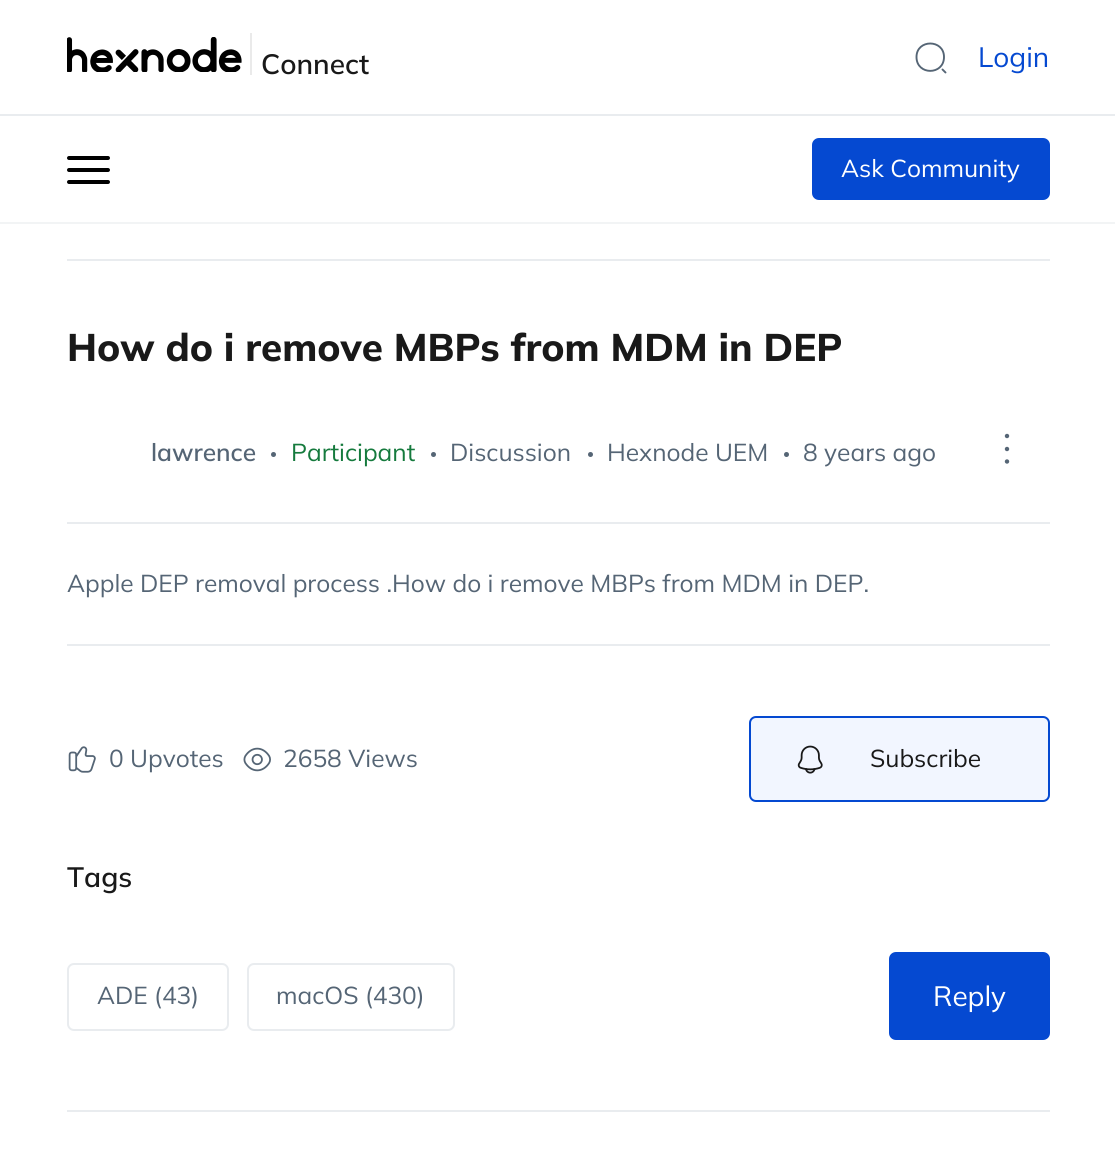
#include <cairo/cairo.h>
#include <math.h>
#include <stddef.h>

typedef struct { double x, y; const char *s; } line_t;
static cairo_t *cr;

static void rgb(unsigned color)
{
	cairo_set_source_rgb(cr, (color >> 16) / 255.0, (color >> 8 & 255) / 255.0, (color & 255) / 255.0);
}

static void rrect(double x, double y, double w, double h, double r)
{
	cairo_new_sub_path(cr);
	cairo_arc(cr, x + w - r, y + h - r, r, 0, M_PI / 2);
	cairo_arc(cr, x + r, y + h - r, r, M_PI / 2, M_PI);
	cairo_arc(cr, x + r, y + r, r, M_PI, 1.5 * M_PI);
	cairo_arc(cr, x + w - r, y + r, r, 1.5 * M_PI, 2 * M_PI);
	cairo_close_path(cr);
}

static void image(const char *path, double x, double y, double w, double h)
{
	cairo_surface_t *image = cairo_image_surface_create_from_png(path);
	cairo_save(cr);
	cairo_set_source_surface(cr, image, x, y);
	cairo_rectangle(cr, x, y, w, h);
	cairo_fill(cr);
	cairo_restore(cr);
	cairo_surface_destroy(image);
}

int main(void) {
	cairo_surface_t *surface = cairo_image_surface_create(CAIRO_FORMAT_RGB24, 1115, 1149);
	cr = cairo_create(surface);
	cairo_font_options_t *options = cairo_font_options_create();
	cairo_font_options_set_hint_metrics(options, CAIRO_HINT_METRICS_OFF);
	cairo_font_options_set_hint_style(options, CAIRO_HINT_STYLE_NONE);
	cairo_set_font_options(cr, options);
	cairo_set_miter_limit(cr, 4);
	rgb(0xffffff);
	cairo_paint(cr);
	rgb(0xf2f4f5);
	cairo_rectangle(cr, 0, 222, 1115, 2);
	cairo_fill(cr);
	rgb(0xeaeaea);
	cairo_rectangle(cr, 250, 33, 2, 42);
	cairo_fill(cr);
	image("img/1.png", 67, 37, 175, 35);
	cairo_new_path(cr);
	cairo_move_to(cr, 944, 57);
	cairo_curve_to(cr, 944, 75.5, 916.5, 75.5, 916.5, 57);
	cairo_curve_to(cr, 916.5, 39, 944, 39, 944, 57);
	cairo_close_path(cr);
	cairo_move_to(cr, 945.5, 72.5);
	cairo_line_to(cr, 942.5, 69.5);
	rgb(0x556575);
	cairo_set_line_width(cr, 1.9);
	cairo_set_line_cap(cr, CAIRO_LINE_CAP_ROUND);
	cairo_set_line_join(cr, CAIRO_LINE_JOIN_ROUND);
	cairo_stroke(cr);
	rgb(0xe9ecef);
	cairo_rectangle(cr, 0, 114, 1115, 2);
	cairo_fill(cr);
	rgb(0x000000);
	rrect(67, 156, 43, 4, 2);
	cairo_fill(cr);
	rrect(67, 168, 43, 4, 2);
	cairo_fill(cr);
	rrect(67, 180, 43, 4, 2);
	cairo_fill(cr);
	rgb(0x0549d1);
	rrect(813, 139, 236, 60, 6);
	cairo_fill_preserve(cr);
	cairo_set_line_width(cr, 2);
	cairo_set_line_cap(cr, CAIRO_LINE_CAP_BUTT);
	cairo_set_line_join(cr, CAIRO_LINE_JOIN_MITER);
	cairo_stroke(cr);
	rgb(0xe9ecef);
	cairo_rectangle(cr, 67, 522, 983, 2);
	cairo_fill(cr);
	cairo_rectangle(cr, 67, 259, 983, 2);
	cairo_fill(cr);
	rgb(0x556575);
	cairo_arc(cr, 273.5, 454.5, 2.5, 0, 2 * M_PI);
	cairo_fill(cr);
	cairo_arc(cr, 433.5, 454.5, 2.5, 0, 2 * M_PI);
	cairo_fill(cr);
	cairo_arc(cr, 590.5, 454.5, 2.5, 0, 2 * M_PI);
	cairo_fill(cr);
	cairo_arc(cr, 786.5, 454.5, 2.5, 0, 2 * M_PI);
	cairo_fill(cr);
	cairo_new_path(cr);
	cairo_move_to(cr, 1007, 461.5);
	cairo_line_to(cr, 1007, 461.5);
	cairo_move_to(cr, 1007, 449);
	cairo_line_to(cr, 1007, 449);
	cairo_move_to(cr, 1007, 436);
	cairo_line_to(cr, 1007, 436);
	cairo_set_line_width(cr, 4.4);
	cairo_set_line_cap(cr, CAIRO_LINE_CAP_ROUND);
	cairo_set_line_join(cr, CAIRO_LINE_JOIN_ROUND);
	cairo_stroke(cr);
	rgb(0xe9ecef);
	cairo_rectangle(cr, 67, 644, 983, 2);
	cairo_fill(cr);
	cairo_rectangle(cr, 67, 1110, 983, 2);
	cairo_fill(cr);
	image("img/2.png", 68, 746, 28, 27);
	image("img/3.png", 243, 747, 28, 25);
	rgb(0xf2f6ff);
	rrect(750, 717, 299, 84, 6);
	cairo_fill_preserve(cr);
	rgb(0x0449d1);
	cairo_set_line_width(cr, 2);
	cairo_set_line_cap(cr, CAIRO_LINE_CAP_BUTT);
	cairo_set_line_join(cr, CAIRO_LINE_JOIN_MITER);
	cairo_stroke(cr);
	image("img/4.png", 797, 745, 26, 29);
	rrect(68, 964, 160, 66, 6);
	rgb(0xe9ecef);
	cairo_stroke(cr);
	rrect(248, 964, 206, 66, 6);
	cairo_stroke(cr);
	rgb(0x0549d1);
	rrect(889, 952, 161, 88, 7);
	cairo_fill(cr);
	cairo_select_font_face(cr, "Mulish SemiBold", CAIRO_FONT_SLANT_NORMAL, CAIRO_FONT_WEIGHT_NORMAL);
	cairo_set_font_size(cr, 28);
	rgb(0x191919);
	cairo_move_to(cr, 261, 74);
	cairo_show_text(cr, "Connect");
	cairo_select_font_face(cr, "Mulish", CAIRO_FONT_SLANT_NORMAL, CAIRO_FONT_WEIGHT_NORMAL);
	rgb(0x0549d1);
	cairo_move_to(cr, 978, 67);
	cairo_show_text(cr, "Login");
	cairo_set_font_size(cr, 24.5);
	rgb(0xffffff);
	cairo_move_to(cr, 841, 177);
	cairo_show_text(cr, "Ask Community");
	cairo_select_font_face(cr, "Mulish ExtraBold", CAIRO_FONT_SLANT_NORMAL, CAIRO_FONT_WEIGHT_NORMAL);
	cairo_set_font_size(cr, 38.5);
	rgb(0x191919);
	cairo_move_to(cr, 67, 361);
	cairo_show_text(cr, "How do i remove MBPs from MDM in DEP");
	cairo_select_font_face(cr, "Mulish SemiBold", CAIRO_FONT_SLANT_NORMAL, CAIRO_FONT_WEIGHT_NORMAL);
	cairo_set_font_size(cr, 24.5);
	rgb(0x556575);
	cairo_move_to(cr, 151, 461);
	cairo_show_text(cr, "lawrence");
	cairo_select_font_face(cr, "Mulish", CAIRO_FONT_SLANT_NORMAL, CAIRO_FONT_WEIGHT_NORMAL);
	rgb(0x157a3d);
	cairo_move_to(cr, 291, 461);
	cairo_show_text(cr, "Participant");
	rgb(0x556575);
	{
		static const line_t items[] = {
			{450, 461, "Discussion"},
			{607, 461, "Hexnode UEM"},
			{803, 461, "8 years ago"},
			{67, 592, "Apple DEP removal process .How do i remove MBPs from MDM in DEP."},
			{109, 767, "0 Upvotes"},
			{283, 767, "2658 Views"},
		};
		for (size_t i = 0; i < sizeof items / sizeof *items; i++) {
			cairo_move_to(cr, items[i].x, items[i].y);
			cairo_show_text(cr, items[i].s);
		}
	}
	rgb(0x191919);
	cairo_move_to(cr, 870, 767);
	cairo_show_text(cr, "Subscribe");
	cairo_select_font_face(cr, "Mulish SemiBold", CAIRO_FONT_SLANT_NORMAL, CAIRO_FONT_WEIGHT_NORMAL);
	cairo_set_font_size(cr, 28);
	cairo_move_to(cr, 67, 887);
	cairo_show_text(cr, "Tags");
	cairo_select_font_face(cr, "Mulish", CAIRO_FONT_SLANT_NORMAL, CAIRO_FONT_WEIGHT_NORMAL);
	cairo_set_font_size(cr, 24.5);
	rgb(0x556575);
	cairo_move_to(cr, 97, 1004);
	cairo_show_text(cr, "ADE (43)");
	cairo_move_to(cr, 276, 1004);
	cairo_show_text(cr, "macOS (430)");
	cairo_set_font_size(cr, 28);
	rgb(0xffffff);
	cairo_move_to(cr, 933, 1006);
	cairo_show_text(cr, "Reply");
	cairo_surface_write_to_png(surface, "page.png");
	cairo_font_options_destroy(options);
	cairo_destroy(cr);
	cairo_surface_destroy(surface);
	return 0;
}
